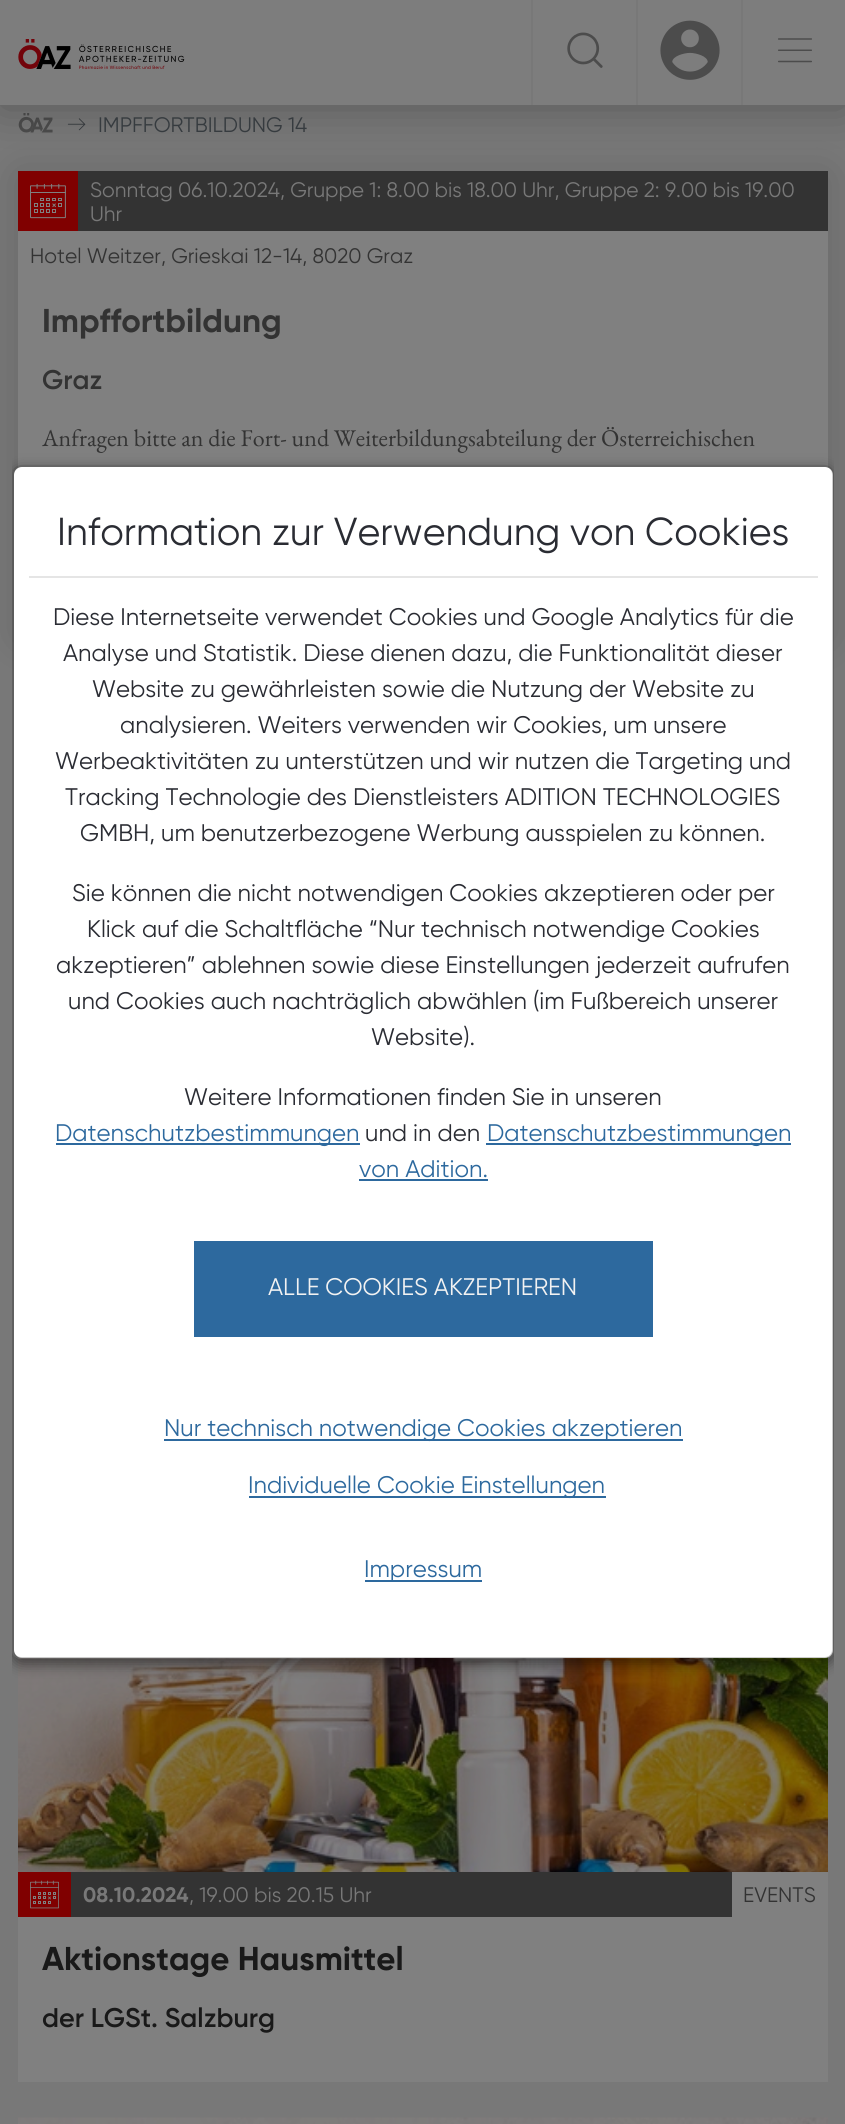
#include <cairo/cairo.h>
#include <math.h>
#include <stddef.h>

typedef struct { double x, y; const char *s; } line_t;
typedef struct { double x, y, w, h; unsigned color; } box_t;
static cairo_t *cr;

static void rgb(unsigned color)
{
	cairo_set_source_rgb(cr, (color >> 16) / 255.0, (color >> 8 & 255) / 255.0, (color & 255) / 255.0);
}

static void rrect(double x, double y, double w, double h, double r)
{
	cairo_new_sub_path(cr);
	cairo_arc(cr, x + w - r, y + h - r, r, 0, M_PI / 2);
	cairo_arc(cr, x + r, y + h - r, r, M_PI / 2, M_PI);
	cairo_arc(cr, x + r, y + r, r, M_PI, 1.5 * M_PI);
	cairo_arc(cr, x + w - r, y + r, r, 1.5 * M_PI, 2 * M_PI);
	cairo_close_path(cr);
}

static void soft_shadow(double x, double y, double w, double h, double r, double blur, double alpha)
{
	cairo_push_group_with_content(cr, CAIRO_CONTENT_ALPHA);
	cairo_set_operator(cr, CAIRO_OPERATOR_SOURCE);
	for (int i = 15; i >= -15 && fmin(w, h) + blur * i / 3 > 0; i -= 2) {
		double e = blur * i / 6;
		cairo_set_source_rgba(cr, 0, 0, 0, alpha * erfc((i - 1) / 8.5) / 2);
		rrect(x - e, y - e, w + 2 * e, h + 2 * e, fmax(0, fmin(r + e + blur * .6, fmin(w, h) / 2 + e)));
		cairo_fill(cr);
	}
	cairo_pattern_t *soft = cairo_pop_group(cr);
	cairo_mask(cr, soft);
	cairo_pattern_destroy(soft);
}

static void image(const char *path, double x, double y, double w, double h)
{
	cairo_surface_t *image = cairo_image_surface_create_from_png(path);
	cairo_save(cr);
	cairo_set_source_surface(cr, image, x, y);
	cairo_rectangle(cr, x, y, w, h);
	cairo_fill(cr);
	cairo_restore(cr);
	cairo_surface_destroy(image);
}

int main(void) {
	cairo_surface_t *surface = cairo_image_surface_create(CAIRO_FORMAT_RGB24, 845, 2124);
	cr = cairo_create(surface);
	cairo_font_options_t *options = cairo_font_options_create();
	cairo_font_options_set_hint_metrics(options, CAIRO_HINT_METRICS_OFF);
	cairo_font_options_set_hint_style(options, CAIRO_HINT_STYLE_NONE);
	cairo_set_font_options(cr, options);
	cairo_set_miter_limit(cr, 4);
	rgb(0x787878);
	cairo_paint(cr);
	image("img/5.png", 18, 113, 35, 20);
	image("img/6.png", 67, 118, 19, 13);
	rgb(0x000000);
	soft_shadow(18, 174, 810, 465, 0, 22.5, 0.14);
	rgb(0x800000);
	cairo_rectangle(cr, 18, 171, 60, 60);
	cairo_fill(cr);
	rgb(0x333333);
	cairo_rectangle(cr, 78, 171, 750, 60);
	cairo_fill(cr);
	rgb(0x000000);
	soft_shadow(0, 3, 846, 105, 0, 22.5, 0.26);
	rgb(0x7d7d7d);
	cairo_rectangle(cr, 0, 0, 845, 105);
	cairo_fill(cr);
	image("img/1.png", 18, 39, 167, 30);
	rgb(0x787878);
	cairo_rectangle(cr, 531, 0, 2, 105);
	cairo_fill(cr);
	image("img/2.png", 567, 32, 36, 36);
	cairo_rectangle(cr, 636, 0, 2, 105);
	cairo_fill(cr);
	image("img/3.png", 660, 20, 60, 60);
	cairo_rectangle(cr, 741, 0, 2, 105);
	cairo_fill(cr);
	image("img/4.png", 778, 38, 34, 25);
	rgb(0x808080);
	cairo_rectangle(cr, 18, 231, 810, 238);
	cairo_fill(cr);
	image("img/7.png", 30, 183, 36, 36);
	image("img/8.png", 18, 1656, 810, 216);
	cairo_save(cr);
	cairo_rectangle(cr, 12, 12, 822, 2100);
	cairo_clip(cr);
	cairo_set_fill_rule(cr, CAIRO_FILL_RULE_EVEN_ODD);
	cairo_new_path(cr);
	cairo_move_to(cr, 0, 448);
	cairo_line_to(cr, 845, 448);
	cairo_line_to(cr, 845, 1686);
	cairo_line_to(cr, 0, 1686);
	cairo_close_path(cr);
	cairo_move_to(cr, 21, 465);
	cairo_line_to(cr, 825, 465);
	cairo_curve_to(cr, 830, 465, 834, 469, 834, 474);
	cairo_line_to(cr, 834, 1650);
	cairo_curve_to(cr, 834, 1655, 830, 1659, 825, 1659);
	cairo_line_to(cr, 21, 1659);
	cairo_curve_to(cr, 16, 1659, 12, 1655, 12, 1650);
	cairo_line_to(cr, 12, 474);
	cairo_curve_to(cr, 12, 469, 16, 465, 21, 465);
	cairo_close_path(cr);
	cairo_clip(cr);
	rgb(0x000000);
	soft_shadow(12, 470, 822, 1194, 9, 7, 0.5);
	cairo_restore(cr);
	rgb(0xffffff);
	rrect(14, 467, 819, 1191, 8);
	cairo_fill(cr);
	rrect(13, 466, 820, 1192, 8);
	cairo_set_source_rgba(cr, 0, 0, 0, 0.2);
	cairo_stroke(cr);
	{
		static const box_t items[] = {
			{29, 576, 789, 2, 0xe5e5e5},
			{56, 1143, 304, 2, 0x2d699e},
			{486, 1143, 305, 2, 0x2d699e},
			{359, 1179, 129, 2, 0x2d699e},
			{194, 1241, 459, 96, 0x2d699e},
			{164, 1439, 519, 2, 0x2d699e},
			{249, 1496, 357, 2, 0x2d699e},
			{365, 1580, 117, 2, 0x2d699e},
			{18, 1872, 53, 45, 0x800000},
		};
		for (size_t i = 0; i < sizeof items / sizeof *items; i++) {
			rgb(items[i].color);
			cairo_rectangle(cr, items[i].x, items[i].y, items[i].w, items[i].h);
			cairo_fill(cr);
		}
	}
	image("img/9.png", 30, 1880, 29, 29);
	{
		static const box_t items[] = {
			{71, 1872, 661, 45, 0x333333},
			{732, 1872, 96, 45, 0x808080},
			{18, 1917, 810, 165, 0x808080},
		};
		for (size_t i = 0; i < sizeof items / sizeof *items; i++) {
			rgb(items[i].color);
			cairo_rectangle(cr, items[i].x, items[i].y, items[i].w, items[i].h);
			cairo_fill(cr);
		}
	}
	image("img/10.png", 18, 2117, 810, 7);
	cairo_select_font_face(cr, "Gilroy", CAIRO_FONT_SLANT_NORMAL, CAIRO_FONT_WEIGHT_NORMAL);
	cairo_set_font_size(cr, 21);
	rgb(0x363b3f);
	cairo_move_to(cr, 98, 132);
	cairo_show_text(cr, "IMPFFORTBILDUNG 14");
	rgb(0x787878);
	cairo_move_to(cr, 90, 197);
	cairo_show_text(cr, "Sonntag 06.10.2024, Gruppe 1: 8.00 bis 18.00 Uhr, Gruppe 2: 9.00 bis 19.00");
	cairo_move_to(cr, 90, 221);
	cairo_show_text(cr, "Uhr");
	rgb(0x333333);
	cairo_move_to(cr, 30, 263);
	cairo_show_text(cr, "Hotel Weitzer, Grieskai 12-14, 8020 Graz");
	cairo_select_font_face(cr, "Gilroy", CAIRO_FONT_SLANT_NORMAL, CAIRO_FONT_WEIGHT_BOLD);
	cairo_set_font_size(cr, 33);
	cairo_move_to(cr, 42, 332);
	cairo_show_text(cr, "Impffortbildung");
	cairo_select_font_face(cr, "Gilroy SemiBold", CAIRO_FONT_SLANT_NORMAL, CAIRO_FONT_WEIGHT_NORMAL);
	cairo_set_font_size(cr, 27);
	cairo_move_to(cr, 42, 389);
	cairo_show_text(cr, "Graz");
	cairo_select_font_face(cr, "EB Garamond", CAIRO_FONT_SLANT_NORMAL, CAIRO_FONT_WEIGHT_NORMAL);
	cairo_set_font_size(cr, 24);
	cairo_move_to(cr, 42, 446);
	cairo_show_text(cr, "Anfragen bitte an die Fort- und Weiterbildungsabteilung der Österreichischen");
	cairo_select_font_face(cr, "Gilroy", CAIRO_FONT_SLANT_NORMAL, CAIRO_FONT_WEIGHT_NORMAL);
	cairo_set_font_size(cr, 39);
	rgb(0x2a2c33);
	cairo_move_to(cr, 57, 545);
	cairo_show_text(cr, "Information zur Verwendung von Cookies");
	cairo_set_font_size(cr, 24);
	{
		static const line_t items[] = {
			{53, 625, "Diese Internetseite verwendet Cookies und Google Analytics für die"},
			{63, 661, "Analyse und Statistik. Diese dienen dazu, die Funktionalität dieser"},
			{92, 697, "Website zu gewährleisten sowie die Nutzung der Website zu"},
			{120, 733, "analysieren. Weiters verwenden wir Cookies, um unsere"},
			{55, 769, "Werbeaktivitäten zu unterstützen und wir nutzen die Targeting und"},
			{65, 805, "Tracking Technologie des Dienstleisters ADITION TECHNOLOGIES"},
			{80, 841, "GMBH, um benutzerbezogene Werbung ausspielen zu können."},
			{72, 901, "Sie können die nicht notwendigen Cookies akzeptieren oder per"},
			{87, 937, "Klick auf die Schaltfläche “Nur technisch notwendige Cookies"},
			{56, 973, "akzeptieren” ablehnen sowie diese Einstellungen jederzeit aufrufen"},
			{68, 1009, "und Cookies auch nachträglich abwählen (im Fußbereich unserer"},
			{371, 1045, "Website)."},
			{184, 1105, "Weitere Informationen finden Sie in unseren"},
		};
		for (size_t i = 0; i < sizeof items / sizeof *items; i++) {
			cairo_move_to(cr, items[i].x, items[i].y);
			cairo_show_text(cr, items[i].s);
		}
	}
	rgb(0x2d699e);
	cairo_move_to(cr, 55, 1141);
	cairo_show_text(cr, "Datenschutzbestimmungen");
	rgb(0x2a2c33);
	cairo_move_to(cr, 365, 1141);
	cairo_show_text(cr, "und in den");
	rgb(0x2d699e);
	cairo_move_to(cr, 487, 1141);
	cairo_show_text(cr, "Datenschutzbestimmungen");
	cairo_move_to(cr, 359, 1177);
	cairo_show_text(cr, "von Adition.");
	rgb(0xf2f2f2);
	cairo_move_to(cr, 268, 1295);
	cairo_show_text(cr, "ALLE COOKIES AKZEPTIEREN");
	rgb(0x2d699e);
	{
		static const line_t items[] = {
			{164, 1436, "Nur technisch notwendige Cookies akzeptieren"},
			{248, 1493, "Individuelle Cookie Einstellungen"},
			{364, 1577, "Impressum"},
		};
		for (size_t i = 0; i < sizeof items / sizeof *items; i++) {
			cairo_move_to(cr, items[i].x, items[i].y);
			cairo_show_text(cr, items[i].s);
		}
	}
	cairo_select_font_face(cr, "Gilroy", CAIRO_FONT_SLANT_NORMAL, CAIRO_FONT_WEIGHT_BOLD);
	cairo_set_font_size(cr, 21);
	rgb(0x787878);
	cairo_move_to(cr, 83, 1902);
	cairo_show_text(cr, "08.10.2024");
	cairo_select_font_face(cr, "Gilroy", CAIRO_FONT_SLANT_NORMAL, CAIRO_FONT_WEIGHT_NORMAL);
	cairo_move_to(cr, 189, 1902);
	cairo_show_text(cr, ", 19.00 bis 20.15 Uhr");
	rgb(0x333333);
	cairo_move_to(cr, 743, 1902);
	cairo_show_text(cr, "EVENTS");
	cairo_select_font_face(cr, "Gilroy", CAIRO_FONT_SLANT_NORMAL, CAIRO_FONT_WEIGHT_BOLD);
	cairo_set_font_size(cr, 33);
	rgb(0x191919);
	cairo_move_to(cr, 42, 1970);
	cairo_show_text(cr, "Aktionstage Hausmittel");
	cairo_select_font_face(cr, "Gilroy SemiBold", CAIRO_FONT_SLANT_NORMAL, CAIRO_FONT_WEIGHT_NORMAL);
	cairo_set_font_size(cr, 27);
	cairo_move_to(cr, 42, 2027);
	cairo_show_text(cr, "der LGSt. Salzburg");
	cairo_surface_write_to_png(surface, "page.png");
	cairo_font_options_destroy(options);
	cairo_destroy(cr);
	cairo_surface_destroy(surface);
	return 0;
}
